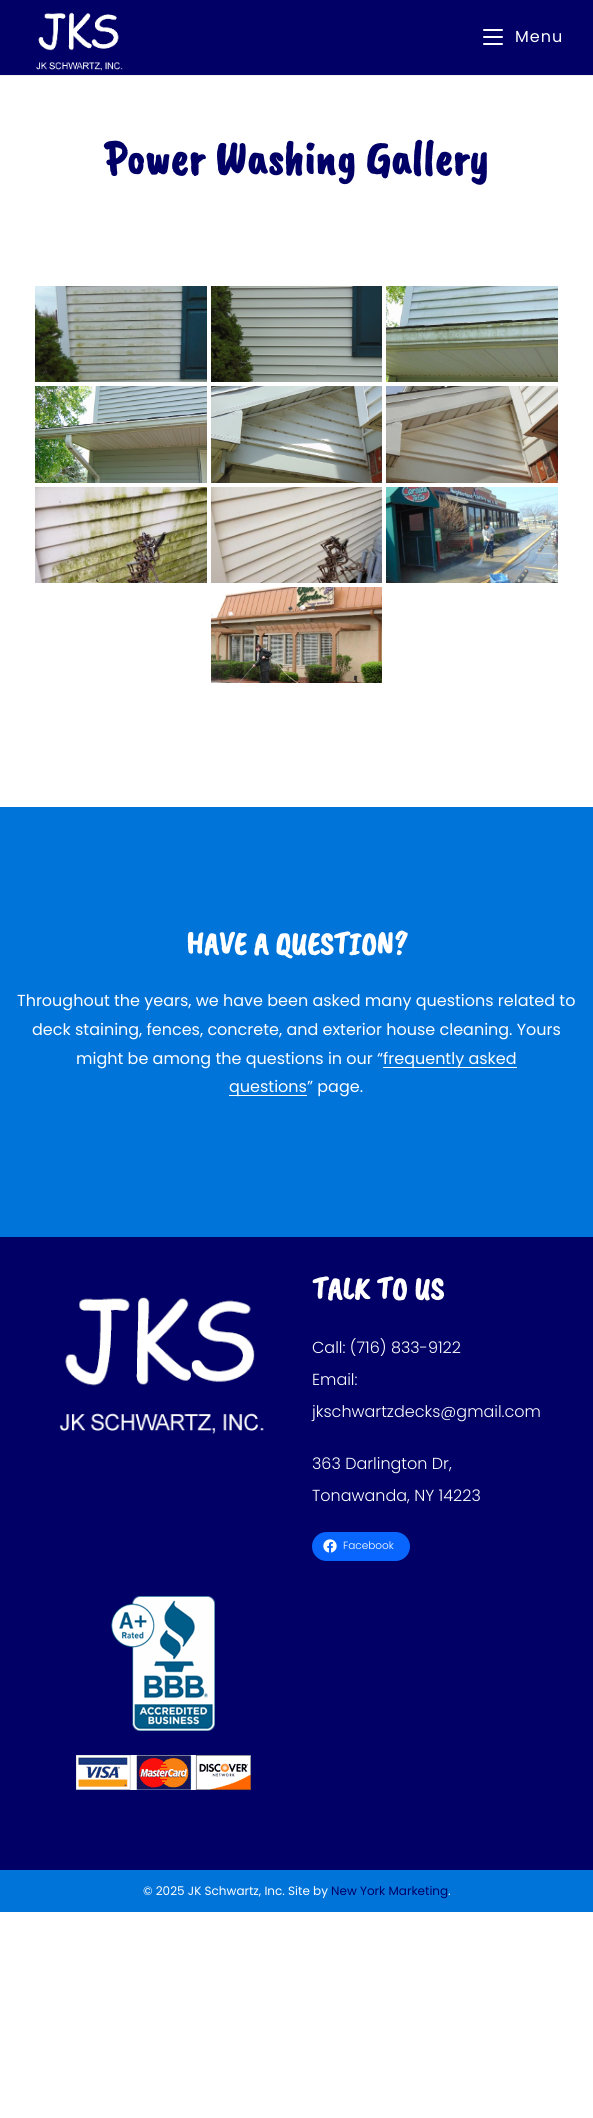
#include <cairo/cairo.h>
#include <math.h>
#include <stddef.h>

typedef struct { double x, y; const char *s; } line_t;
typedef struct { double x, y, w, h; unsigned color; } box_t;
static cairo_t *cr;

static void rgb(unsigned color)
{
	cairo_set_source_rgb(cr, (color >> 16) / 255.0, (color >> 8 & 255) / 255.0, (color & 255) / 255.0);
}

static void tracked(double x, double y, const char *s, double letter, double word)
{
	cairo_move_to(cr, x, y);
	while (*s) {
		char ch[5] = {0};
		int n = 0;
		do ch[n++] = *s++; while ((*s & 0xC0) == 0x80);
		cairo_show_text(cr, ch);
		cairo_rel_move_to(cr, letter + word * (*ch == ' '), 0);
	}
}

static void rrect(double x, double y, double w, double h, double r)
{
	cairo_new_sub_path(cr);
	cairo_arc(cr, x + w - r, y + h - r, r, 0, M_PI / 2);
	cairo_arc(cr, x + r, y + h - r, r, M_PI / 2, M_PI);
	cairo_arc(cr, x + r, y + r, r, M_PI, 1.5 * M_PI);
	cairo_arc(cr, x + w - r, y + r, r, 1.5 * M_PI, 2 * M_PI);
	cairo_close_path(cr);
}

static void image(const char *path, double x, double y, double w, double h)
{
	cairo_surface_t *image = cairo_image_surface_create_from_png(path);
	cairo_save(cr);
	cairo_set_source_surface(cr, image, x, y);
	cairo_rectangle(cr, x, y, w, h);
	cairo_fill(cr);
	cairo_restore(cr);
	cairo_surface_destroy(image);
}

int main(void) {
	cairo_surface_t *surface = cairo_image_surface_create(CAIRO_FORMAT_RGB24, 593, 2118);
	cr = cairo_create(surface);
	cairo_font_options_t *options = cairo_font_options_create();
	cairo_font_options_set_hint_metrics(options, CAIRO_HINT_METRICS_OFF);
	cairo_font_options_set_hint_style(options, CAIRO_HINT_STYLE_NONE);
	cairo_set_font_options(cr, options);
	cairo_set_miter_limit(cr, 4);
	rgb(0xffffff);
	cairo_paint(cr);
	rgb(0x000066);
	cairo_rectangle(cr, 0, 0, 593, 75);
	cairo_fill(cr);
	rgb(0xf1f1f1);
	cairo_rectangle(cr, 0, 75, 593, 1);
	cairo_fill(cr);
	image("img/1.png", 36, 12, 87, 59);
	rgb(0xffffff);
	rrect(483, 36, 20, 2, 1);
	cairo_fill(cr);
	rrect(483, 29, 20, 2, 1);
	cairo_fill(cr);
	rrect(483, 43, 20, 2, 1);
	cairo_fill(cr);
	image("img/2.png", 35, 286, 172, 96);
	image("img/3.png", 211, 286, 171, 96);
	image("img/4.png", 386, 286, 172, 96);
	image("img/5.png", 35, 386, 172, 97);
	image("img/6.png", 211, 386, 171, 97);
	image("img/7.png", 386, 386, 172, 97);
	image("img/8.png", 35, 487, 172, 96);
	image("img/9.png", 211, 487, 171, 96);
	image("img/10.png", 386, 487, 172, 96);
	image("img/11.png", 211, 587, 171, 96);
	{
		static const box_t items[] = {
			{0, 807, 593, 430, 0x0074d9},
			{383, 1067, 134, 1, 0xffffff},
			{229, 1095, 78, 1, 0xffffff},
			{0, 1237, 593, 633, 0x000066},
		};
		for (size_t i = 0; i < sizeof items / sizeof *items; i++) {
			rgb(items[i].color);
			cairo_rectangle(cr, items[i].x, items[i].y, items[i].w, items[i].h);
			cairo_fill(cr);
		}
	}
	image("img/12.png", 59, 1297, 205, 137);
	rgb(0x0866ff);
	rrect(312, 1532, 98, 29, 14.5);
	cairo_fill(cr);
	image("img/13.png", 323, 1539, 14, 14);
	image("img/14.png", 111, 1596, 104, 135);
	image("img/15.png", 76, 1755, 175, 35);
	rgb(0x0074d9);
	cairo_rectangle(cr, 0, 1870, 593, 42);
	cairo_fill(cr);
	cairo_select_font_face(cr, "Poppins", CAIRO_FONT_SLANT_NORMAL, CAIRO_FONT_WEIGHT_NORMAL);
	cairo_set_font_size(cr, 16);
	rgb(0xffffff);
	tracked(515, 42, "Menu", 1, 0);
	cairo_select_font_face(cr, "Caveat Brush", CAIRO_FONT_SLANT_NORMAL, CAIRO_FONT_WEIGHT_BOLD);
	cairo_set_font_size(cr, 48);
	rgb(0x000066);
	cairo_move_to(cr, 104, 174);
	cairo_show_text(cr, "Power Washing Gallery");
	cairo_set_font_size(cr, 32);
	rgb(0xffffff);
	cairo_move_to(cr, 186, 954);
	cairo_show_text(cr, "HAVE A QUESTION?");
	cairo_select_font_face(cr, "Poppins", CAIRO_FONT_SLANT_NORMAL, CAIRO_FONT_WEIGHT_NORMAL);
	cairo_set_font_size(cr, 16);
	{
		static const line_t items[] = {
			{17, 1006, "Throughout the years, we have been asked many questions related to"},
			{32, 1035, "deck staining, fences, concrete, and exterior house cleaning. Yours"},
			{76, 1064, "might be among the questions in our “"},
			{383, 1064, "frequently asked"},
			{229, 1092, "questions” page."},
		};
		for (size_t i = 0; i < sizeof items / sizeof *items; i++) {
			cairo_move_to(cr, items[i].x, items[i].y);
			cairo_show_text(cr, items[i].s);
		}
	}
	cairo_select_font_face(cr, "Caveat Brush", CAIRO_FONT_SLANT_NORMAL, CAIRO_FONT_WEIGHT_BOLD);
	cairo_set_font_size(cr, 32);
	cairo_move_to(cr, 312, 1299);
	cairo_show_text(cr, "TALK TO US");
	cairo_select_font_face(cr, "Poppins Light", CAIRO_FONT_SLANT_NORMAL, CAIRO_FONT_WEIGHT_NORMAL);
	cairo_set_font_size(cr, 16);
	{
		static const line_t items[] = {
			{312, 1353, "Call: (716) 833-9122"},
			{312, 1385, "Email:"},
			{312, 1417, "jkschwartzdecks@gmail.com"},
			{312, 1469, "363 Darlington Dr,"},
			{312, 1501, "Tonawanda, NY 14223"},
		};
		for (size_t i = 0; i < sizeof items / sizeof *items; i++) {
			cairo_move_to(cr, items[i].x, items[i].y);
			cairo_show_text(cr, items[i].s);
		}
	}
	cairo_set_font_size(cr, 10.5);
	cairo_move_to(cr, 343, 1549);
	cairo_show_text(cr, "Facebook");
	cairo_select_font_face(cr, "Poppins", CAIRO_FONT_SLANT_NORMAL, CAIRO_FONT_WEIGHT_NORMAL);
	cairo_set_font_size(cr, 12);
	cairo_move_to(cr, 143, 1895);
	cairo_show_text(cr, "© 2025 JK Schwartz, Inc. Site by");
	rgb(0x000066);
	cairo_move_to(cr, 331, 1895);
	cairo_show_text(cr, "New York Marketing");
	rgb(0xffffff);
	cairo_move_to(cr, 448, 1895);
	cairo_show_text(cr, ".");
	cairo_surface_write_to_png(surface, "page.png");
	cairo_font_options_destroy(options);
	cairo_destroy(cr);
	cairo_surface_destroy(surface);
	return 0;
}
